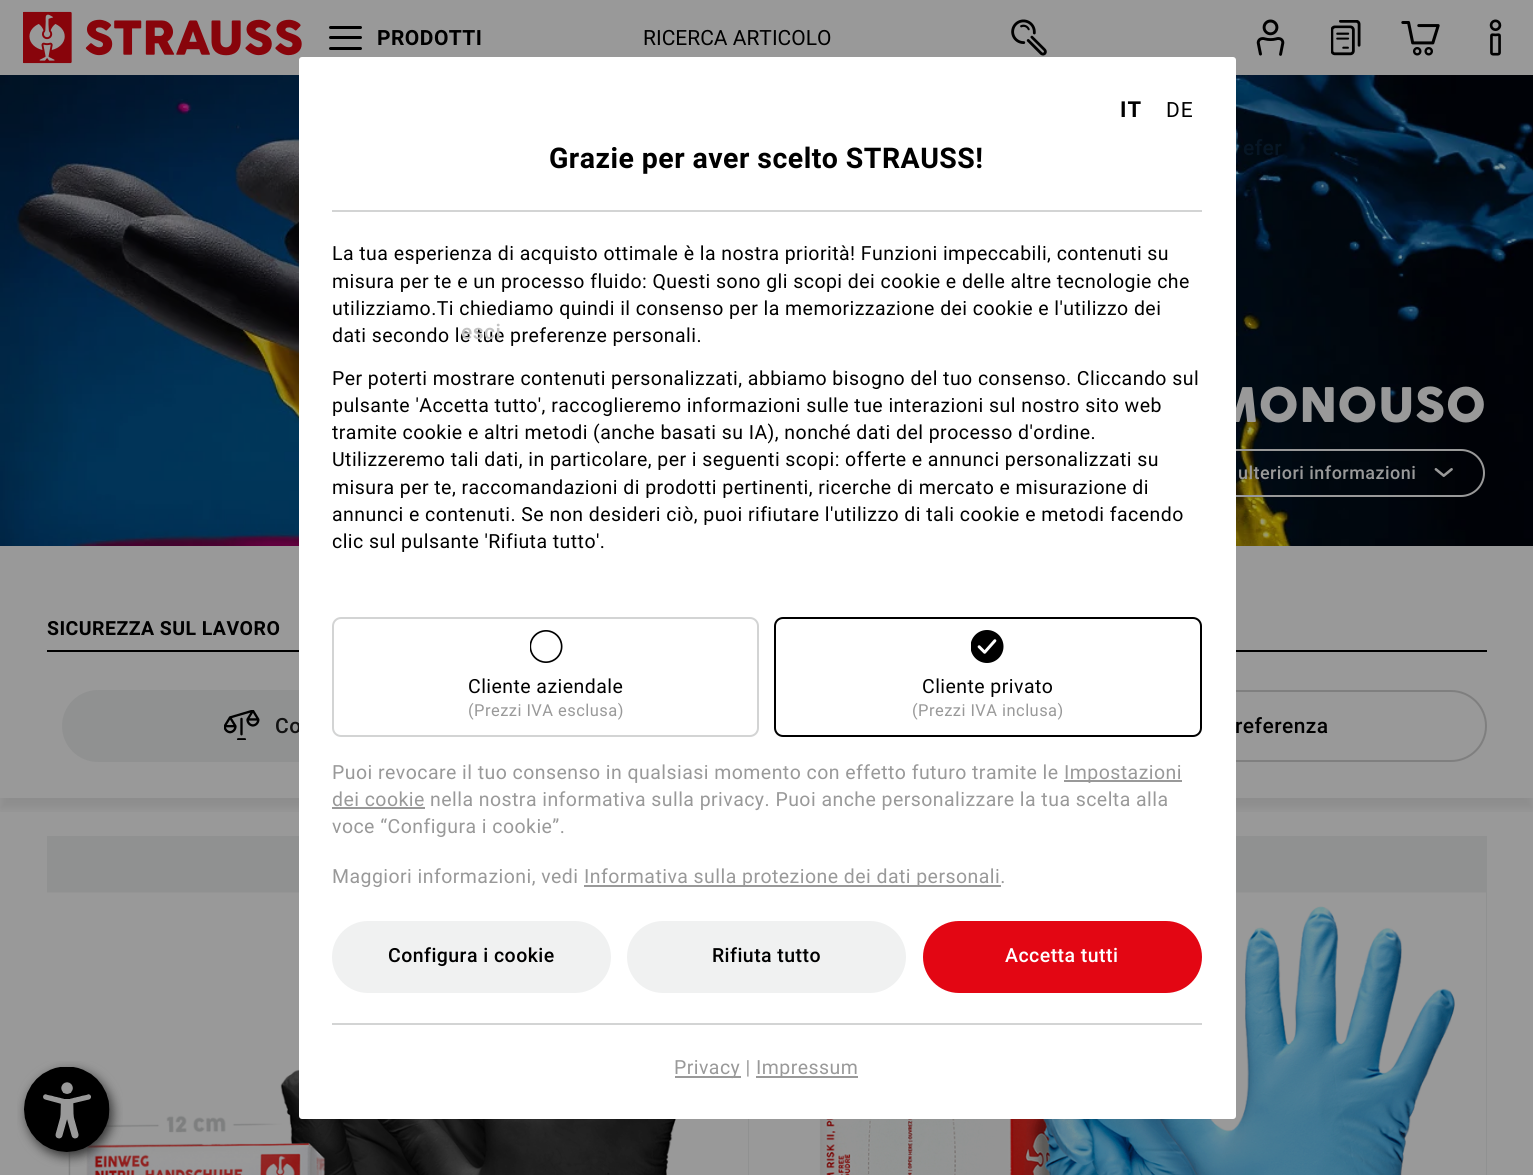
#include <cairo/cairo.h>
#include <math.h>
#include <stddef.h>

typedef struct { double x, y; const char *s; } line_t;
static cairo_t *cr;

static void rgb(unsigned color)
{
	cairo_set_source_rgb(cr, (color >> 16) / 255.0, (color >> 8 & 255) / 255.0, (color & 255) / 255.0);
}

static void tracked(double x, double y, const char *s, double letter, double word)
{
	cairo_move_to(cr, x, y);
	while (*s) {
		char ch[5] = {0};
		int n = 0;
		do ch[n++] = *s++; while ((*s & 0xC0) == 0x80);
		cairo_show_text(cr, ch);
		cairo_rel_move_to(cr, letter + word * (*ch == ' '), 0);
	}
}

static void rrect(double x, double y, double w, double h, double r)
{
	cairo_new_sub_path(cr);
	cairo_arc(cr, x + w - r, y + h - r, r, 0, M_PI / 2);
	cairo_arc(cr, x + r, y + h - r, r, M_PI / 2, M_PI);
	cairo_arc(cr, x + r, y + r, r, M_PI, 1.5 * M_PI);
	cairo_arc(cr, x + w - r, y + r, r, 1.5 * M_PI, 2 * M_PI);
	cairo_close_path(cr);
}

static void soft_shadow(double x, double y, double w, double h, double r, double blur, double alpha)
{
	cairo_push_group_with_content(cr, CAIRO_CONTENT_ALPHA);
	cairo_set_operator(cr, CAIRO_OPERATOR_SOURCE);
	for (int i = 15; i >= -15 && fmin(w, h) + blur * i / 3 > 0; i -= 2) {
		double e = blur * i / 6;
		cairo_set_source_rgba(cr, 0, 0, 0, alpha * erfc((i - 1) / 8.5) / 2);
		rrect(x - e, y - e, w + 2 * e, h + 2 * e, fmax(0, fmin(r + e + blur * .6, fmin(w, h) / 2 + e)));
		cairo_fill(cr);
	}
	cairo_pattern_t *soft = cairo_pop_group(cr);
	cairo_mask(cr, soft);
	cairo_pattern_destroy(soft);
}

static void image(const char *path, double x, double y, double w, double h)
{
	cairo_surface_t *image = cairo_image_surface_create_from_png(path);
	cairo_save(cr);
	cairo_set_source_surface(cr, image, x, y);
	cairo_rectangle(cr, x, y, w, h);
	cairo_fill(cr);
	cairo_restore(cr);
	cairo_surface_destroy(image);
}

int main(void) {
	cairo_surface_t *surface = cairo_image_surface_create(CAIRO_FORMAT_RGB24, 1533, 1175);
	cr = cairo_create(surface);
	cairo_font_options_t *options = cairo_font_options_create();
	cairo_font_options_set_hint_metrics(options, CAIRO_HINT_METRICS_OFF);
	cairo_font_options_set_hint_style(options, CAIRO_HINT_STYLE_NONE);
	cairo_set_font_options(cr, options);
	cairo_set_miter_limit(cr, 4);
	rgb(0x999999);
	cairo_paint(cr);
	image("img/1.png", 23, 11, 279, 53);
	rgb(0x000000);
	rrect(329, 26, 33, 3, 1.5);
	cairo_fill(cr);
	rrect(329, 36, 33, 3, 1.5);
	cairo_fill(cr);
	rrect(329, 47, 33, 3, 1.5);
	cairo_fill(cr);
	image("img/2.png", 1011, 19, 36, 37);
	image("img/3.png", 1256, 19, 29, 37);
	image("img/4.png", 1331, 20, 30, 36);
	image("img/5.png", 1401, 21, 39, 35);
	image("img/6.png", 1489, 19, 13, 37);
	cairo_rectangle(cr, 47, 650, 1440, 2);
	cairo_fill(cr);
	rgb(0x909191);
	rrect(62, 690, 475, 72, 36);
	cairo_fill(cr);
	image("img/7.png", 224, 710, 36, 30);
	rrect(1020, 691, 466, 70, 35);
	rgb(0x7f7f7f);
	cairo_stroke(cr);
	cairo_save(cr);
	cairo_rectangle(cr, 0, 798, 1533, 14);
	cairo_clip(cr);
	rgb(0x000000);
	soft_shadow(0, 788, 1533, 21, 0, 5, 0.08);
	cairo_restore(cr);
	rgb(0x909191);
	cairo_rectangle(cr, 47, 836, 702, 339);
	cairo_fill(cr);
	image("img/8.png", 47, 892, 701, 283);
	cairo_rectangle(cr, 1236, 836, 251, 339);
	cairo_fill(cr);
	image("img/9.png", 785, 892, 701, 283);
	image("img/10.png", 0, 75, 1533, 471);
	rrect(1209, 450, 275, 46, 23);
	rgb(0x999999);
	cairo_stroke(cr);
	image("img/11.png", 1434, 468, 19, 9);
	image("img/14.png", 17, 1061, 106, 106);
	cairo_select_font_face(cr, "Roboto", CAIRO_FONT_SLANT_NORMAL, CAIRO_FONT_WEIGHT_BOLD);
	cairo_set_font_size(cr, 21);
	rgb(0x000000);
	tracked(377, 45, "PRODOTTI", 0.45, 0);
	cairo_select_font_face(cr, "Roboto", CAIRO_FONT_SLANT_NORMAL, CAIRO_FONT_WEIGHT_NORMAL);
	cairo_move_to(cr, 643, 45);
	cairo_show_text(cr, "RICERCA ARTICOLO");
	cairo_select_font_face(cr, "Roboto Medium", CAIRO_FONT_SLANT_NORMAL, CAIRO_FONT_WEIGHT_NORMAL);
	rgb(0x071625);
	tracked(1243, 155, "efer", 0.45, 0);
	cairo_select_font_face(cr, "Roboto", CAIRO_FONT_SLANT_NORMAL, CAIRO_FONT_WEIGHT_BOLD);
	cairo_set_font_size(cr, 19.5);
	rgb(0x000000);
	tracked(47, 635, "SICUREZZA SUL LAVORO", 0.45, 0);
	cairo_select_font_face(cr, "Roboto Medium", CAIRO_FONT_SLANT_NORMAL, CAIRO_FONT_WEIGHT_NORMAL);
	cairo_set_font_size(cr, 21);
	rgb(0x121212);
	tracked(275, 733, "Co", 0.45, 0);
	rgb(0x000000);
	tracked(1235, 733, "referenza", 0.45, 0);
	cairo_select_font_face(cr, "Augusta", CAIRO_FONT_SLANT_NORMAL, CAIRO_FONT_WEIGHT_NORMAL);
	cairo_set_font_size(cr, 47);
	rgb(0x999999);
	tracked(1213, 422, "MONOUSO", 0.45, 0);
	cairo_select_font_face(cr, "Roboto Medium", CAIRO_FONT_SLANT_NORMAL, CAIRO_FONT_WEIGHT_NORMAL);
	cairo_set_font_size(cr, 18);
	tracked(1238, 479, "ulteriori informazioni", 0.45, 0);
	rgb(0xffffff);
	rrect(299, 57, 937, 1062, 3);
	cairo_fill(cr);
	cairo_select_font_face(cr, "Roboto", CAIRO_FONT_SLANT_NORMAL, CAIRO_FONT_WEIGHT_BOLD);
	cairo_set_font_size(cr, 22);
	rgb(0x000000);
	tracked(1120, 117, "IT", 1, 0);
	cairo_select_font_face(cr, "Roboto", CAIRO_FONT_SLANT_NORMAL, CAIRO_FONT_WEIGHT_NORMAL);
	cairo_set_font_size(cr, 21);
	tracked(1166, 117, "DE", 1, 0);
	cairo_select_font_face(cr, "Roboto", CAIRO_FONT_SLANT_NORMAL, CAIRO_FONT_WEIGHT_BOLD);
	cairo_set_font_size(cr, 28.5);
	tracked(549, 168, "Grazie per aver scelto STRAUSS!", 0.45, 0);
	rgb(0xd3d4d4);
	cairo_rectangle(cr, 332, 210, 870, 2);
	cairo_fill(cr);
	cairo_select_font_face(cr, "Roboto", CAIRO_FONT_SLANT_NORMAL, CAIRO_FONT_WEIGHT_NORMAL);
	cairo_set_font_size(cr, 19.5);
	rgb(0x000000);
	{
		static const line_t items[] = {
			{332, 260, "La tua esperienza di acquisto ottimale è la nostra priorità! Funzioni impeccabili, contenuti su"},
			{332, 288, "misura per te e un processo fluido: Questi sono gli scopi dei cookie e delle altre tecnologie che"},
			{332, 315, "utilizziamo.Ti chiediamo quindi il consenso per la memorizzazione dei cookie e l'utilizzo dei"},
			{332, 342, "dati secondo le tue preferenze personali."},
		};
		for (size_t i = 0; i < sizeof items / sizeof *items; i++) {
			tracked(items[i].x, items[i].y, items[i].s, 0.45, 0);
		}
	}
	cairo_select_font_face(cr, "Roboto Medium", CAIRO_FONT_SLANT_NORMAL, CAIRO_FONT_WEIGHT_NORMAL);
	cairo_set_font_size(cr, 21);
	rgb(0xc2c2c2);
	tracked(461, 339, "esci", 0.45, 0);
	cairo_select_font_face(cr, "Roboto", CAIRO_FONT_SLANT_NORMAL, CAIRO_FONT_WEIGHT_NORMAL);
	cairo_set_font_size(cr, 19.5);
	rgb(0x000000);
	{
		static const line_t items[] = {
			{332, 385, "Per poterti mostrare contenuti personalizzati, abbiamo bisogno del tuo consenso. Cliccando sul"},
			{332, 412, "pulsante 'Accetta tutto', raccoglieremo informazioni sulle tue interazioni sul nostro sito web"},
			{332, 439, "tramite cookie e altri metodi (anche basati su IA), nonché dati del processo d'ordine."},
			{332, 466, "Utilizzeremo tali dati, in particolare, per i seguenti scopi: offerte e annunci personalizzati su"},
			{332, 494, "misura per te, raccomandazioni di prodotti pertinenti, ricerche di mercato e misurazione di"},
			{332, 521, "annunci e contenuti. Se non desideri ciò, puoi rifiutare l'utilizzo di tali cookie e metodi facendo"},
			{332, 548, "clic sul pulsante 'Rifiuta tutto'."},
		};
		for (size_t i = 0; i < sizeof items / sizeof *items; i++) {
			tracked(items[i].x, items[i].y, items[i].s, 0.45, 0);
		}
	}
	rrect(333, 618, 425, 118, 8);
	rgb(0xd3d4d4);
	cairo_stroke(cr);
	image("img/12.png", 530, 630, 33, 33);
	rgb(0x000000);
	tracked(468, 693, "Cliente aziendale", 0.45, 0);
	cairo_set_font_size(cr, 16.5);
	rgb(0x999999);
	tracked(468, 716, "(Prezzi IVA esclusa)", 0.45, 0);
	rrect(775, 618, 426, 118, 8);
	rgb(0x000000);
	cairo_stroke(cr);
	image("img/13.png", 971, 630, 33, 33);
	cairo_set_font_size(cr, 19.5);
	tracked(922, 693, "Cliente privato", 0.45, 0);
	cairo_set_font_size(cr, 16.5);
	rgb(0x999999);
	tracked(912, 716, "(Prezzi IVA inclusa)", 0.45, 0);
	cairo_set_font_size(cr, 19.5);
	tracked(332, 779, "Puoi revocare il tuo consenso in qualsiasi momento con effetto futuro tramite le", 0.45, 0);
	cairo_rectangle(cr, 1064, 780, 118, 2);
	cairo_fill(cr);
	tracked(1064, 779, "Impostazioni", 0.45, 0);
	cairo_rectangle(cr, 332, 807, 93, 2);
	cairo_fill(cr);
	{
		static const line_t items[] = {
			{332, 806, "dei cookie nella nostra informativa sulla privacy. Puoi anche personalizzare la tua scelta alla"},
			{332, 833, "voce “Configura i cookie”."},
			{332, 883, "Maggiori informazioni, vedi"},
		};
		for (size_t i = 0; i < sizeof items / sizeof *items; i++) {
			tracked(items[i].x, items[i].y, items[i].s, 0.45, 0);
		}
	}
	cairo_rectangle(cr, 584, 885, 417, 2);
	cairo_fill(cr);
	tracked(584, 883, "Informativa sulla protezione dei dati personali.", 0.45, 0);
	rgb(0xf0f1f1);
	rrect(332, 921, 279, 72, 36);
	cairo_fill(cr);
	cairo_select_font_face(cr, "Roboto Medium", CAIRO_FONT_SLANT_NORMAL, CAIRO_FONT_WEIGHT_NORMAL);
	rgb(0x000000);
	tracked(388, 962, "Configura i cookie", 0.45, 0);
	rgb(0xf0f1f1);
	rrect(627, 921, 279, 72, 36);
	cairo_fill(cr);
	rgb(0x000000);
	tracked(712, 962, "Rifiuta tutto", 0.45, 0);
	rgb(0xe30613);
	rrect(923, 921, 279, 72, 36);
	cairo_fill(cr);
	rgb(0xffffff);
	tracked(1005, 962, "Accetta tutti", 0.45, 0);
	rgb(0xd3d4d4);
	cairo_rectangle(cr, 332, 1023, 870, 2);
	cairo_fill(cr);
	rgb(0x999999);
	cairo_rectangle(cr, 675, 1076, 66, 2);
	cairo_fill(cr);
	cairo_select_font_face(cr, "Roboto", CAIRO_FONT_SLANT_NORMAL, CAIRO_FONT_WEIGHT_NORMAL);
	tracked(674, 1074, "Privacy |", 0.45, 0);
	cairo_rectangle(cr, 756, 1076, 102, 2);
	cairo_fill(cr);
	tracked(756, 1074, "Impressum", 0.45, 0);
	cairo_surface_write_to_png(surface, "page.png");
	cairo_font_options_destroy(options);
	cairo_destroy(cr);
	cairo_surface_destroy(surface);
	return 0;
}
